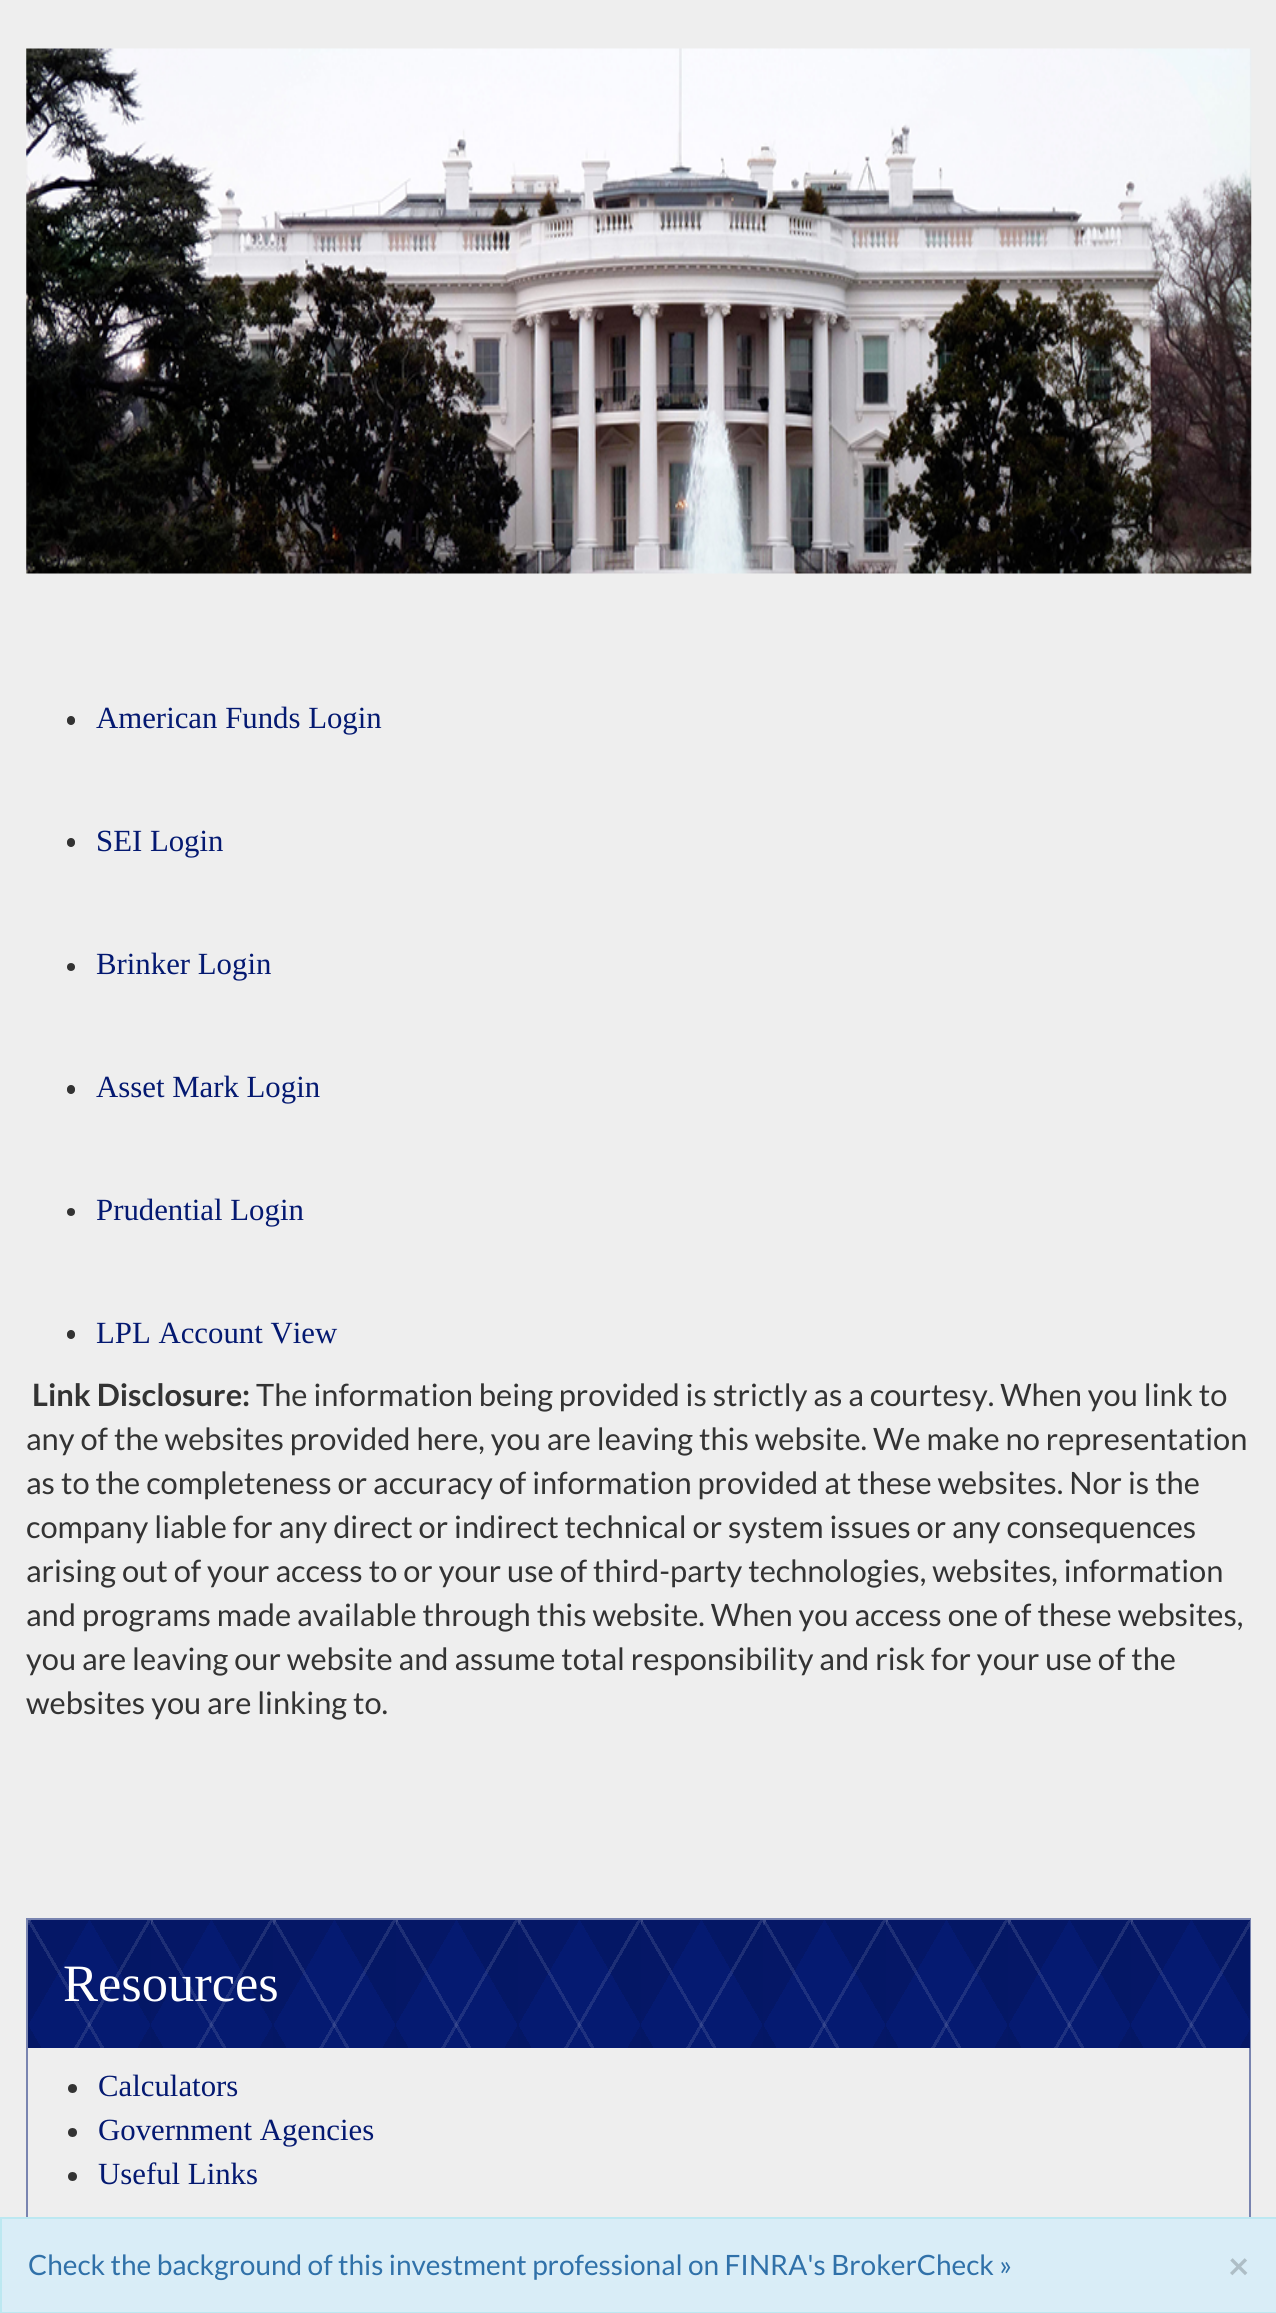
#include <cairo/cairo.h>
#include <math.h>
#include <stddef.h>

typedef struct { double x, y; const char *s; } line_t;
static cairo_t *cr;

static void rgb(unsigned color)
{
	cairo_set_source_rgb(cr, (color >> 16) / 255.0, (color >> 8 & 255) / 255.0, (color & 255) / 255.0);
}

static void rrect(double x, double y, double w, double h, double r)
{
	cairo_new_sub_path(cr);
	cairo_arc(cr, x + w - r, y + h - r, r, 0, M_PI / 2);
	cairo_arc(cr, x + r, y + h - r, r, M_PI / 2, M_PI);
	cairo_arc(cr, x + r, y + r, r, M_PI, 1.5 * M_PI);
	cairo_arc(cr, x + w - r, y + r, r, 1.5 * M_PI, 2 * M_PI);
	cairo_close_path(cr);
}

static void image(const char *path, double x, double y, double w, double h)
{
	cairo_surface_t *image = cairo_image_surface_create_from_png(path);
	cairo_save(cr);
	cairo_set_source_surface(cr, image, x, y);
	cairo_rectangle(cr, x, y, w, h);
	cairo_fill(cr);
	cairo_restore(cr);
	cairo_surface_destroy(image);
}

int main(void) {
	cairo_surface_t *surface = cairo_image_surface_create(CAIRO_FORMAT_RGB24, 1276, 2313);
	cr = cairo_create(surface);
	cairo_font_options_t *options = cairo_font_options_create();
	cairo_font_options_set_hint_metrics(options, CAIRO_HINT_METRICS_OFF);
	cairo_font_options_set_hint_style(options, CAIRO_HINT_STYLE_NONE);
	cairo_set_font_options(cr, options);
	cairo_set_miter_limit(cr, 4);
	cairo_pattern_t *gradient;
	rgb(0xeeeeee);
	cairo_paint(cr);
	image("img/1.png", 26, 48, 1226, 526);
	rgb(0x333333);
	rrect(67, 716, 8, 9, 4);
	cairo_fill(cr);
	rrect(67, 838, 8, 9, 4);
	cairo_fill(cr);
	cairo_arc(cr, 71, 967, 4, 0, 2 * M_PI);
	cairo_fill(cr);
	rrect(67, 1085, 8, 9, 4);
	cairo_fill(cr);
	cairo_arc(cr, 71, 1212, 4, 0, 2 * M_PI);
	cairo_fill(cr);
	rrect(67, 1330, 8, 9, 4);
	cairo_fill(cr);
	cairo_rectangle(cr, 27, 1919, 1223, 313);
	rgb(0x7984b0);
	cairo_stroke(cr);
	gradient = cairo_pattern_create_linear(-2.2, 1972, 181, 2078);
	cairo_pattern_add_color_stop_rgba(gradient, 0.25, 0.02, 0.09, 0.4, 1);
	cairo_pattern_add_color_stop_rgba(gradient, 0.25, 0.02, 0.102, 0.443, 1);
	cairo_pattern_add_color_stop_rgba(gradient, 0.75, 0.02, 0.102, 0.443, 1);
	cairo_pattern_add_color_stop_rgba(gradient, 0.75, 0.02, 0.09, 0.4, 1);
	cairo_pattern_add_color_stop_rgba(gradient, 1, 0.02, 0.09, 0.4, 1);
	cairo_set_source(cr, gradient);
	cairo_pattern_destroy(gradient);
	cairo_rectangle(cr, 28, 1920, 123, 128);
	cairo_fill(cr);
	gradient = cairo_pattern_create_linear(120, 1972, 303, 2078);
	cairo_pattern_add_color_stop_rgba(gradient, 0.25, 0.02, 0.09, 0.4, 1);
	cairo_pattern_add_color_stop_rgba(gradient, 0.25, 0.02, 0.102, 0.443, 1);
	cairo_pattern_add_color_stop_rgba(gradient, 0.75, 0.02, 0.102, 0.443, 1);
	cairo_pattern_add_color_stop_rgba(gradient, 0.75, 0.02, 0.09, 0.4, 1);
	cairo_pattern_add_color_stop_rgba(gradient, 1, 0.02, 0.09, 0.4, 1);
	cairo_set_source(cr, gradient);
	cairo_pattern_destroy(gradient);
	cairo_rectangle(cr, 151, 1920, 122, 128);
	cairo_fill(cr);
	gradient = cairo_pattern_create_linear(243, 1972, 426, 2078);
	cairo_pattern_add_color_stop_rgba(gradient, 0.25, 0.02, 0.09, 0.4, 1);
	cairo_pattern_add_color_stop_rgba(gradient, 0.25, 0.02, 0.102, 0.443, 1);
	cairo_pattern_add_color_stop_rgba(gradient, 0.75, 0.02, 0.102, 0.443, 1);
	cairo_pattern_add_color_stop_rgba(gradient, 0.75, 0.02, 0.09, 0.4, 1);
	cairo_pattern_add_color_stop_rgba(gradient, 1, 0.02, 0.09, 0.4, 1);
	cairo_set_source(cr, gradient);
	cairo_pattern_destroy(gradient);
	cairo_rectangle(cr, 273, 1920, 123, 128);
	cairo_fill(cr);
	gradient = cairo_pattern_create_linear(365, 1972, 548, 2078);
	cairo_pattern_add_color_stop_rgba(gradient, 0.25, 0.02, 0.09, 0.4, 1);
	cairo_pattern_add_color_stop_rgba(gradient, 0.25, 0.02, 0.102, 0.443, 1);
	cairo_pattern_add_color_stop_rgba(gradient, 0.75, 0.02, 0.102, 0.443, 1);
	cairo_pattern_add_color_stop_rgba(gradient, 0.75, 0.02, 0.09, 0.4, 1);
	cairo_pattern_add_color_stop_rgba(gradient, 1, 0.02, 0.09, 0.4, 1);
	cairo_set_source(cr, gradient);
	cairo_pattern_destroy(gradient);
	cairo_rectangle(cr, 396, 1920, 122, 128);
	cairo_fill(cr);
	gradient = cairo_pattern_create_linear(488, 1972, 671, 2078);
	cairo_pattern_add_color_stop_rgba(gradient, 0.25, 0.02, 0.09, 0.4, 1);
	cairo_pattern_add_color_stop_rgba(gradient, 0.25, 0.02, 0.102, 0.443, 1);
	cairo_pattern_add_color_stop_rgba(gradient, 0.75, 0.02, 0.102, 0.443, 1);
	cairo_pattern_add_color_stop_rgba(gradient, 0.75, 0.02, 0.09, 0.4, 1);
	cairo_pattern_add_color_stop_rgba(gradient, 1, 0.02, 0.09, 0.4, 1);
	cairo_set_source(cr, gradient);
	cairo_pattern_destroy(gradient);
	cairo_rectangle(cr, 518, 1920, 123, 128);
	cairo_fill(cr);
	gradient = cairo_pattern_create_linear(610, 1972, 793, 2078);
	cairo_pattern_add_color_stop_rgba(gradient, 0.25, 0.02, 0.09, 0.4, 1);
	cairo_pattern_add_color_stop_rgba(gradient, 0.25, 0.02, 0.102, 0.443, 1);
	cairo_pattern_add_color_stop_rgba(gradient, 0.75, 0.02, 0.102, 0.443, 1);
	cairo_pattern_add_color_stop_rgba(gradient, 0.75, 0.02, 0.09, 0.4, 1);
	cairo_pattern_add_color_stop_rgba(gradient, 1, 0.02, 0.09, 0.4, 1);
	cairo_set_source(cr, gradient);
	cairo_pattern_destroy(gradient);
	cairo_rectangle(cr, 641, 1920, 122, 128);
	cairo_fill(cr);
	gradient = cairo_pattern_create_linear(733, 1972, 916, 2078);
	cairo_pattern_add_color_stop_rgba(gradient, 0.25, 0.02, 0.09, 0.4, 1);
	cairo_pattern_add_color_stop_rgba(gradient, 0.25, 0.02, 0.102, 0.443, 1);
	cairo_pattern_add_color_stop_rgba(gradient, 0.75, 0.02, 0.102, 0.443, 1);
	cairo_pattern_add_color_stop_rgba(gradient, 0.75, 0.02, 0.09, 0.4, 1);
	cairo_pattern_add_color_stop_rgba(gradient, 1, 0.02, 0.09, 0.4, 1);
	cairo_set_source(cr, gradient);
	cairo_pattern_destroy(gradient);
	cairo_rectangle(cr, 763, 1920, 123, 128);
	cairo_fill(cr);
	gradient = cairo_pattern_create_linear(855, 1972, 1038, 2078);
	cairo_pattern_add_color_stop_rgba(gradient, 0.25, 0.02, 0.09, 0.4, 1);
	cairo_pattern_add_color_stop_rgba(gradient, 0.25, 0.02, 0.102, 0.443, 1);
	cairo_pattern_add_color_stop_rgba(gradient, 0.75, 0.02, 0.102, 0.443, 1);
	cairo_pattern_add_color_stop_rgba(gradient, 0.75, 0.02, 0.09, 0.4, 1);
	cairo_pattern_add_color_stop_rgba(gradient, 1, 0.02, 0.09, 0.4, 1);
	cairo_set_source(cr, gradient);
	cairo_pattern_destroy(gradient);
	cairo_rectangle(cr, 886, 1920, 122, 128);
	cairo_fill(cr);
	gradient = cairo_pattern_create_linear(978, 1972, 1161, 2078);
	cairo_pattern_add_color_stop_rgba(gradient, 0.25, 0.02, 0.09, 0.4, 1);
	cairo_pattern_add_color_stop_rgba(gradient, 0.25, 0.02, 0.102, 0.443, 1);
	cairo_pattern_add_color_stop_rgba(gradient, 0.75, 0.02, 0.102, 0.443, 1);
	cairo_pattern_add_color_stop_rgba(gradient, 0.75, 0.02, 0.09, 0.4, 1);
	cairo_pattern_add_color_stop_rgba(gradient, 1, 0.02, 0.09, 0.4, 1);
	cairo_set_source(cr, gradient);
	cairo_pattern_destroy(gradient);
	cairo_rectangle(cr, 1008, 1920, 123, 128);
	cairo_fill(cr);
	gradient = cairo_pattern_create_linear(1100, 1972, 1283, 2078);
	cairo_pattern_add_color_stop_rgba(gradient, 0.25, 0.02, 0.09, 0.4, 1);
	cairo_pattern_add_color_stop_rgba(gradient, 0.25, 0.02, 0.102, 0.443, 1);
	cairo_pattern_add_color_stop_rgba(gradient, 0.75, 0.02, 0.102, 0.443, 1);
	cairo_pattern_add_color_stop_rgba(gradient, 0.75, 0.02, 0.09, 0.4, 1);
	cairo_pattern_add_color_stop_rgba(gradient, 1, 0.02, 0.09, 0.4, 1);
	cairo_set_source(cr, gradient);
	cairo_pattern_destroy(gradient);
	cairo_rectangle(cr, 1131, 1920, 119, 128);
	cairo_fill(cr);
	gradient = cairo_pattern_create_linear(-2.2, 2078, 181, 1972);
	cairo_pattern_add_color_stop_rgba(gradient, 0.25, 0, 0, 0, 0.1);
	cairo_pattern_add_color_stop_rgba(gradient, 0.25, 0, 0, 0, 0);
	cairo_pattern_add_color_stop_rgba(gradient, 0.75, 0, 0, 0, 0);
	cairo_pattern_add_color_stop_rgba(gradient, 0.75, 0, 0, 0, 0.1);
	cairo_pattern_add_color_stop_rgba(gradient, 1, 0, 0, 0, 0.1);
	cairo_set_source(cr, gradient);
	cairo_pattern_destroy(gradient);
	cairo_rectangle(cr, 28, 1920, 123, 128);
	cairo_fill(cr);
	gradient = cairo_pattern_create_linear(120, 2078, 303, 1972);
	cairo_pattern_add_color_stop_rgba(gradient, 0.25, 0, 0, 0, 0.1);
	cairo_pattern_add_color_stop_rgba(gradient, 0.25, 0, 0, 0, 0);
	cairo_pattern_add_color_stop_rgba(gradient, 0.75, 0, 0, 0, 0);
	cairo_pattern_add_color_stop_rgba(gradient, 0.75, 0, 0, 0, 0.1);
	cairo_pattern_add_color_stop_rgba(gradient, 1, 0, 0, 0, 0.1);
	cairo_set_source(cr, gradient);
	cairo_pattern_destroy(gradient);
	cairo_rectangle(cr, 151, 1920, 122, 128);
	cairo_fill(cr);
	gradient = cairo_pattern_create_linear(243, 2078, 426, 1972);
	cairo_pattern_add_color_stop_rgba(gradient, 0.25, 0, 0, 0, 0.1);
	cairo_pattern_add_color_stop_rgba(gradient, 0.25, 0, 0, 0, 0);
	cairo_pattern_add_color_stop_rgba(gradient, 0.75, 0, 0, 0, 0);
	cairo_pattern_add_color_stop_rgba(gradient, 0.75, 0, 0, 0, 0.1);
	cairo_pattern_add_color_stop_rgba(gradient, 1, 0, 0, 0, 0.1);
	cairo_set_source(cr, gradient);
	cairo_pattern_destroy(gradient);
	cairo_rectangle(cr, 273, 1920, 123, 128);
	cairo_fill(cr);
	gradient = cairo_pattern_create_linear(365, 2078, 548, 1972);
	cairo_pattern_add_color_stop_rgba(gradient, 0.25, 0, 0, 0, 0.1);
	cairo_pattern_add_color_stop_rgba(gradient, 0.25, 0, 0, 0, 0);
	cairo_pattern_add_color_stop_rgba(gradient, 0.75, 0, 0, 0, 0);
	cairo_pattern_add_color_stop_rgba(gradient, 0.75, 0, 0, 0, 0.1);
	cairo_pattern_add_color_stop_rgba(gradient, 1, 0, 0, 0, 0.1);
	cairo_set_source(cr, gradient);
	cairo_pattern_destroy(gradient);
	cairo_rectangle(cr, 396, 1920, 122, 128);
	cairo_fill(cr);
	gradient = cairo_pattern_create_linear(488, 2078, 671, 1972);
	cairo_pattern_add_color_stop_rgba(gradient, 0.25, 0, 0, 0, 0.1);
	cairo_pattern_add_color_stop_rgba(gradient, 0.25, 0, 0, 0, 0);
	cairo_pattern_add_color_stop_rgba(gradient, 0.75, 0, 0, 0, 0);
	cairo_pattern_add_color_stop_rgba(gradient, 0.75, 0, 0, 0, 0.1);
	cairo_pattern_add_color_stop_rgba(gradient, 1, 0, 0, 0, 0.1);
	cairo_set_source(cr, gradient);
	cairo_pattern_destroy(gradient);
	cairo_rectangle(cr, 518, 1920, 123, 128);
	cairo_fill(cr);
	gradient = cairo_pattern_create_linear(610, 2078, 793, 1972);
	cairo_pattern_add_color_stop_rgba(gradient, 0.25, 0, 0, 0, 0.1);
	cairo_pattern_add_color_stop_rgba(gradient, 0.25, 0, 0, 0, 0);
	cairo_pattern_add_color_stop_rgba(gradient, 0.75, 0, 0, 0, 0);
	cairo_pattern_add_color_stop_rgba(gradient, 0.75, 0, 0, 0, 0.1);
	cairo_pattern_add_color_stop_rgba(gradient, 1, 0, 0, 0, 0.1);
	cairo_set_source(cr, gradient);
	cairo_pattern_destroy(gradient);
	cairo_rectangle(cr, 641, 1920, 122, 128);
	cairo_fill(cr);
	gradient = cairo_pattern_create_linear(733, 2078, 916, 1972);
	cairo_pattern_add_color_stop_rgba(gradient, 0.25, 0, 0, 0, 0.1);
	cairo_pattern_add_color_stop_rgba(gradient, 0.25, 0, 0, 0, 0);
	cairo_pattern_add_color_stop_rgba(gradient, 0.75, 0, 0, 0, 0);
	cairo_pattern_add_color_stop_rgba(gradient, 0.75, 0, 0, 0, 0.1);
	cairo_pattern_add_color_stop_rgba(gradient, 1, 0, 0, 0, 0.1);
	cairo_set_source(cr, gradient);
	cairo_pattern_destroy(gradient);
	cairo_rectangle(cr, 763, 1920, 123, 128);
	cairo_fill(cr);
	gradient = cairo_pattern_create_linear(855, 2078, 1038, 1972);
	cairo_pattern_add_color_stop_rgba(gradient, 0.25, 0, 0, 0, 0.1);
	cairo_pattern_add_color_stop_rgba(gradient, 0.25, 0, 0, 0, 0);
	cairo_pattern_add_color_stop_rgba(gradient, 0.75, 0, 0, 0, 0);
	cairo_pattern_add_color_stop_rgba(gradient, 0.75, 0, 0, 0, 0.1);
	cairo_pattern_add_color_stop_rgba(gradient, 1, 0, 0, 0, 0.1);
	cairo_set_source(cr, gradient);
	cairo_pattern_destroy(gradient);
	cairo_rectangle(cr, 886, 1920, 122, 128);
	cairo_fill(cr);
	gradient = cairo_pattern_create_linear(978, 2078, 1161, 1972);
	cairo_pattern_add_color_stop_rgba(gradient, 0.25, 0, 0, 0, 0.1);
	cairo_pattern_add_color_stop_rgba(gradient, 0.25, 0, 0, 0, 0);
	cairo_pattern_add_color_stop_rgba(gradient, 0.75, 0, 0, 0, 0);
	cairo_pattern_add_color_stop_rgba(gradient, 0.75, 0, 0, 0, 0.1);
	cairo_pattern_add_color_stop_rgba(gradient, 1, 0, 0, 0, 0.1);
	cairo_set_source(cr, gradient);
	cairo_pattern_destroy(gradient);
	cairo_rectangle(cr, 1008, 1920, 123, 128);
	cairo_fill(cr);
	gradient = cairo_pattern_create_linear(1100, 2078, 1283, 1972);
	cairo_pattern_add_color_stop_rgba(gradient, 0.25, 0, 0, 0, 0.1);
	cairo_pattern_add_color_stop_rgba(gradient, 0.25, 0, 0, 0, 0);
	cairo_pattern_add_color_stop_rgba(gradient, 0.75, 0, 0, 0, 0);
	cairo_pattern_add_color_stop_rgba(gradient, 0.75, 0, 0, 0, 0.1);
	cairo_pattern_add_color_stop_rgba(gradient, 1, 0, 0, 0, 0.1);
	cairo_set_source(cr, gradient);
	cairo_pattern_destroy(gradient);
	cairo_rectangle(cr, 1131, 1920, 119, 128);
	cairo_fill(cr);
	gradient = cairo_pattern_create_linear(-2.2, 2078, 271, 1920);
	cairo_pattern_add_color_stop_rgba(gradient, 0, 1, 1, 1, 0.1);
	cairo_pattern_add_color_stop_rgba(gradient, 0.01, 1, 1, 1, 0.1);
	cairo_pattern_add_color_stop_rgba(gradient, 0.01, 1, 1, 1, 0);
	cairo_pattern_add_color_stop_rgba(gradient, 0.33, 1, 1, 1, 0);
	cairo_pattern_add_color_stop_rgba(gradient, 0.33, 1, 1, 1, 0.1);
	cairo_pattern_add_color_stop_rgba(gradient, 0.34, 1, 1, 1, 0.1);
	cairo_pattern_add_color_stop_rgba(gradient, 0.34, 1, 1, 1, 0);
	cairo_pattern_add_color_stop_rgba(gradient, 0.67, 1, 1, 1, 0);
	cairo_pattern_add_color_stop_rgba(gradient, 0.67, 1, 1, 1, 0.1);
	cairo_pattern_add_color_stop_rgba(gradient, 0.67, 1, 1, 1, 0.1);
	cairo_pattern_add_color_stop_rgba(gradient, 0.67, 1, 1, 1, 0);
	cairo_pattern_add_color_stop_rgba(gradient, 1, 0, 0, 0, 0);
	cairo_set_source(cr, gradient);
	cairo_pattern_destroy(gradient);
	cairo_rectangle(cr, 28, 1920, 76, 128);
	cairo_fill(cr);
	gradient = cairo_pattern_create_linear(120, 2078, 393, 1920);
	cairo_pattern_add_color_stop_rgba(gradient, 0, 1, 1, 1, 0.1);
	cairo_pattern_add_color_stop_rgba(gradient, 0.01, 1, 1, 1, 0.1);
	cairo_pattern_add_color_stop_rgba(gradient, 0.01, 1, 1, 1, 0);
	cairo_pattern_add_color_stop_rgba(gradient, 0.33, 1, 1, 1, 0);
	cairo_pattern_add_color_stop_rgba(gradient, 0.33, 1, 1, 1, 0.1);
	cairo_pattern_add_color_stop_rgba(gradient, 0.34, 1, 1, 1, 0.1);
	cairo_pattern_add_color_stop_rgba(gradient, 0.34, 1, 1, 1, 0);
	cairo_pattern_add_color_stop_rgba(gradient, 0.67, 1, 1, 1, 0);
	cairo_pattern_add_color_stop_rgba(gradient, 0.67, 1, 1, 1, 0.1);
	cairo_pattern_add_color_stop_rgba(gradient, 0.67, 1, 1, 1, 0.1);
	cairo_pattern_add_color_stop_rgba(gradient, 0.67, 1, 1, 1, 0);
	cairo_pattern_add_color_stop_rgba(gradient, 1, 0, 0, 0, 0);
	cairo_set_source(cr, gradient);
	cairo_pattern_destroy(gradient);
	cairo_rectangle(cr, 151, 1920, 75, 128);
	cairo_fill(cr);
	gradient = cairo_pattern_create_linear(243, 2078, 516, 1920);
	cairo_pattern_add_color_stop_rgba(gradient, 0, 1, 1, 1, 0.1);
	cairo_pattern_add_color_stop_rgba(gradient, 0.01, 1, 1, 1, 0.1);
	cairo_pattern_add_color_stop_rgba(gradient, 0.01, 1, 1, 1, 0);
	cairo_pattern_add_color_stop_rgba(gradient, 0.33, 1, 1, 1, 0);
	cairo_pattern_add_color_stop_rgba(gradient, 0.33, 1, 1, 1, 0.1);
	cairo_pattern_add_color_stop_rgba(gradient, 0.34, 1, 1, 1, 0.1);
	cairo_pattern_add_color_stop_rgba(gradient, 0.34, 1, 1, 1, 0);
	cairo_pattern_add_color_stop_rgba(gradient, 0.67, 1, 1, 1, 0);
	cairo_pattern_add_color_stop_rgba(gradient, 0.67, 1, 1, 1, 0.1);
	cairo_pattern_add_color_stop_rgba(gradient, 0.67, 1, 1, 1, 0.1);
	cairo_pattern_add_color_stop_rgba(gradient, 0.67, 1, 1, 1, 0);
	cairo_pattern_add_color_stop_rgba(gradient, 1, 0, 0, 0, 0);
	cairo_set_source(cr, gradient);
	cairo_pattern_destroy(gradient);
	cairo_rectangle(cr, 273, 1920, 76, 128);
	cairo_fill(cr);
	gradient = cairo_pattern_create_linear(365, 2078, 638, 1920);
	cairo_pattern_add_color_stop_rgba(gradient, 0, 1, 1, 1, 0.1);
	cairo_pattern_add_color_stop_rgba(gradient, 0.01, 1, 1, 1, 0.1);
	cairo_pattern_add_color_stop_rgba(gradient, 0.01, 1, 1, 1, 0);
	cairo_pattern_add_color_stop_rgba(gradient, 0.33, 1, 1, 1, 0);
	cairo_pattern_add_color_stop_rgba(gradient, 0.33, 1, 1, 1, 0.1);
	cairo_pattern_add_color_stop_rgba(gradient, 0.34, 1, 1, 1, 0.1);
	cairo_pattern_add_color_stop_rgba(gradient, 0.34, 1, 1, 1, 0);
	cairo_pattern_add_color_stop_rgba(gradient, 0.67, 1, 1, 1, 0);
	cairo_pattern_add_color_stop_rgba(gradient, 0.67, 1, 1, 1, 0.1);
	cairo_pattern_add_color_stop_rgba(gradient, 0.67, 1, 1, 1, 0.1);
	cairo_pattern_add_color_stop_rgba(gradient, 0.67, 1, 1, 1, 0);
	cairo_pattern_add_color_stop_rgba(gradient, 1, 0, 0, 0, 0);
	cairo_set_source(cr, gradient);
	cairo_pattern_destroy(gradient);
	cairo_rectangle(cr, 396, 1920, 75, 128);
	cairo_fill(cr);
	gradient = cairo_pattern_create_linear(488, 2078, 761, 1920);
	cairo_pattern_add_color_stop_rgba(gradient, 0, 1, 1, 1, 0.1);
	cairo_pattern_add_color_stop_rgba(gradient, 0.01, 1, 1, 1, 0.1);
	cairo_pattern_add_color_stop_rgba(gradient, 0.01, 1, 1, 1, 0);
	cairo_pattern_add_color_stop_rgba(gradient, 0.33, 1, 1, 1, 0);
	cairo_pattern_add_color_stop_rgba(gradient, 0.33, 1, 1, 1, 0.1);
	cairo_pattern_add_color_stop_rgba(gradient, 0.34, 1, 1, 1, 0.1);
	cairo_pattern_add_color_stop_rgba(gradient, 0.34, 1, 1, 1, 0);
	cairo_pattern_add_color_stop_rgba(gradient, 0.67, 1, 1, 1, 0);
	cairo_pattern_add_color_stop_rgba(gradient, 0.67, 1, 1, 1, 0.1);
	cairo_pattern_add_color_stop_rgba(gradient, 0.67, 1, 1, 1, 0.1);
	cairo_pattern_add_color_stop_rgba(gradient, 0.67, 1, 1, 1, 0);
	cairo_pattern_add_color_stop_rgba(gradient, 1, 0, 0, 0, 0);
	cairo_set_source(cr, gradient);
	cairo_pattern_destroy(gradient);
	cairo_rectangle(cr, 518, 1920, 76, 128);
	cairo_fill(cr);
	gradient = cairo_pattern_create_linear(610, 2078, 883, 1920);
	cairo_pattern_add_color_stop_rgba(gradient, 0, 1, 1, 1, 0.1);
	cairo_pattern_add_color_stop_rgba(gradient, 0.01, 1, 1, 1, 0.1);
	cairo_pattern_add_color_stop_rgba(gradient, 0.01, 1, 1, 1, 0);
	cairo_pattern_add_color_stop_rgba(gradient, 0.33, 1, 1, 1, 0);
	cairo_pattern_add_color_stop_rgba(gradient, 0.33, 1, 1, 1, 0.1);
	cairo_pattern_add_color_stop_rgba(gradient, 0.34, 1, 1, 1, 0.1);
	cairo_pattern_add_color_stop_rgba(gradient, 0.34, 1, 1, 1, 0);
	cairo_pattern_add_color_stop_rgba(gradient, 0.67, 1, 1, 1, 0);
	cairo_pattern_add_color_stop_rgba(gradient, 0.67, 1, 1, 1, 0.1);
	cairo_pattern_add_color_stop_rgba(gradient, 0.67, 1, 1, 1, 0.1);
	cairo_pattern_add_color_stop_rgba(gradient, 0.67, 1, 1, 1, 0);
	cairo_pattern_add_color_stop_rgba(gradient, 1, 0, 0, 0, 0);
	cairo_set_source(cr, gradient);
	cairo_pattern_destroy(gradient);
	cairo_rectangle(cr, 641, 1920, 75, 128);
	cairo_fill(cr);
	gradient = cairo_pattern_create_linear(733, 2078, 1006, 1920);
	cairo_pattern_add_color_stop_rgba(gradient, 0, 1, 1, 1, 0.1);
	cairo_pattern_add_color_stop_rgba(gradient, 0.01, 1, 1, 1, 0.1);
	cairo_pattern_add_color_stop_rgba(gradient, 0.01, 1, 1, 1, 0);
	cairo_pattern_add_color_stop_rgba(gradient, 0.33, 1, 1, 1, 0);
	cairo_pattern_add_color_stop_rgba(gradient, 0.33, 1, 1, 1, 0.1);
	cairo_pattern_add_color_stop_rgba(gradient, 0.34, 1, 1, 1, 0.1);
	cairo_pattern_add_color_stop_rgba(gradient, 0.34, 1, 1, 1, 0);
	cairo_pattern_add_color_stop_rgba(gradient, 0.67, 1, 1, 1, 0);
	cairo_pattern_add_color_stop_rgba(gradient, 0.67, 1, 1, 1, 0.1);
	cairo_pattern_add_color_stop_rgba(gradient, 0.67, 1, 1, 1, 0.1);
	cairo_pattern_add_color_stop_rgba(gradient, 0.67, 1, 1, 1, 0);
	cairo_pattern_add_color_stop_rgba(gradient, 1, 0, 0, 0, 0);
	cairo_set_source(cr, gradient);
	cairo_pattern_destroy(gradient);
	cairo_rectangle(cr, 763, 1920, 76, 128);
	cairo_fill(cr);
	gradient = cairo_pattern_create_linear(855, 2078, 1128, 1920);
	cairo_pattern_add_color_stop_rgba(gradient, 0, 1, 1, 1, 0.1);
	cairo_pattern_add_color_stop_rgba(gradient, 0.01, 1, 1, 1, 0.1);
	cairo_pattern_add_color_stop_rgba(gradient, 0.01, 1, 1, 1, 0);
	cairo_pattern_add_color_stop_rgba(gradient, 0.33, 1, 1, 1, 0);
	cairo_pattern_add_color_stop_rgba(gradient, 0.33, 1, 1, 1, 0.1);
	cairo_pattern_add_color_stop_rgba(gradient, 0.34, 1, 1, 1, 0.1);
	cairo_pattern_add_color_stop_rgba(gradient, 0.34, 1, 1, 1, 0);
	cairo_pattern_add_color_stop_rgba(gradient, 0.67, 1, 1, 1, 0);
	cairo_pattern_add_color_stop_rgba(gradient, 0.67, 1, 1, 1, 0.1);
	cairo_pattern_add_color_stop_rgba(gradient, 0.67, 1, 1, 1, 0.1);
	cairo_pattern_add_color_stop_rgba(gradient, 0.67, 1, 1, 1, 0);
	cairo_pattern_add_color_stop_rgba(gradient, 1, 0, 0, 0, 0);
	cairo_set_source(cr, gradient);
	cairo_pattern_destroy(gradient);
	cairo_rectangle(cr, 886, 1920, 75, 128);
	cairo_fill(cr);
	gradient = cairo_pattern_create_linear(978, 2078, 1251, 1920);
	cairo_pattern_add_color_stop_rgba(gradient, 0, 1, 1, 1, 0.1);
	cairo_pattern_add_color_stop_rgba(gradient, 0.01, 1, 1, 1, 0.1);
	cairo_pattern_add_color_stop_rgba(gradient, 0.01, 1, 1, 1, 0);
	cairo_pattern_add_color_stop_rgba(gradient, 0.33, 1, 1, 1, 0);
	cairo_pattern_add_color_stop_rgba(gradient, 0.33, 1, 1, 1, 0.1);
	cairo_pattern_add_color_stop_rgba(gradient, 0.34, 1, 1, 1, 0.1);
	cairo_pattern_add_color_stop_rgba(gradient, 0.34, 1, 1, 1, 0);
	cairo_pattern_add_color_stop_rgba(gradient, 0.67, 1, 1, 1, 0);
	cairo_pattern_add_color_stop_rgba(gradient, 0.67, 1, 1, 1, 0.1);
	cairo_pattern_add_color_stop_rgba(gradient, 0.67, 1, 1, 1, 0.1);
	cairo_pattern_add_color_stop_rgba(gradient, 0.67, 1, 1, 1, 0);
	cairo_pattern_add_color_stop_rgba(gradient, 1, 0, 0, 0, 0);
	cairo_set_source(cr, gradient);
	cairo_pattern_destroy(gradient);
	cairo_rectangle(cr, 1008, 1920, 76, 128);
	cairo_fill(cr);
	gradient = cairo_pattern_create_linear(1100, 2078, 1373, 1920);
	cairo_pattern_add_color_stop_rgba(gradient, 0, 1, 1, 1, 0.1);
	cairo_pattern_add_color_stop_rgba(gradient, 0.01, 1, 1, 1, 0.1);
	cairo_pattern_add_color_stop_rgba(gradient, 0.01, 1, 1, 1, 0);
	cairo_pattern_add_color_stop_rgba(gradient, 0.33, 1, 1, 1, 0);
	cairo_pattern_add_color_stop_rgba(gradient, 0.33, 1, 1, 1, 0.1);
	cairo_pattern_add_color_stop_rgba(gradient, 0.34, 1, 1, 1, 0.1);
	cairo_pattern_add_color_stop_rgba(gradient, 0.34, 1, 1, 1, 0);
	cairo_pattern_add_color_stop_rgba(gradient, 0.67, 1, 1, 1, 0);
	cairo_pattern_add_color_stop_rgba(gradient, 0.67, 1, 1, 1, 0.1);
	cairo_pattern_add_color_stop_rgba(gradient, 0.67, 1, 1, 1, 0.1);
	cairo_pattern_add_color_stop_rgba(gradient, 0.67, 1, 1, 1, 0);
	cairo_pattern_add_color_stop_rgba(gradient, 1, 0, 0, 0, 0);
	cairo_set_source(cr, gradient);
	cairo_pattern_destroy(gradient);
	cairo_rectangle(cr, 1131, 1920, 75, 128);
	cairo_fill(cr);
	gradient = cairo_pattern_create_linear(-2.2, 1972, 271, 2129);
	cairo_pattern_add_color_stop_rgba(gradient, 0, 1, 1, 1, 0.1);
	cairo_pattern_add_color_stop_rgba(gradient, 0.01, 1, 1, 1, 0.1);
	cairo_pattern_add_color_stop_rgba(gradient, 0.01, 1, 1, 1, 0);
	cairo_pattern_add_color_stop_rgba(gradient, 0.33, 1, 1, 1, 0);
	cairo_pattern_add_color_stop_rgba(gradient, 0.33, 1, 1, 1, 0.1);
	cairo_pattern_add_color_stop_rgba(gradient, 0.34, 1, 1, 1, 0.1);
	cairo_pattern_add_color_stop_rgba(gradient, 0.34, 1, 1, 1, 0);
	cairo_pattern_add_color_stop_rgba(gradient, 0.67, 1, 1, 1, 0);
	cairo_pattern_add_color_stop_rgba(gradient, 0.67, 1, 1, 1, 0.1);
	cairo_pattern_add_color_stop_rgba(gradient, 0.67, 1, 1, 1, 0.1);
	cairo_pattern_add_color_stop_rgba(gradient, 0.67, 1, 1, 1, 0);
	cairo_pattern_add_color_stop_rgba(gradient, 1, 0, 0, 0, 0);
	cairo_set_source(cr, gradient);
	cairo_pattern_destroy(gradient);
	cairo_rectangle(cr, 28, 1920, 123, 128);
	cairo_fill(cr);
	gradient = cairo_pattern_create_linear(120, 1972, 393, 2129);
	cairo_pattern_add_color_stop_rgba(gradient, 0, 1, 1, 1, 0.1);
	cairo_pattern_add_color_stop_rgba(gradient, 0.01, 1, 1, 1, 0.1);
	cairo_pattern_add_color_stop_rgba(gradient, 0.01, 1, 1, 1, 0);
	cairo_pattern_add_color_stop_rgba(gradient, 0.33, 1, 1, 1, 0);
	cairo_pattern_add_color_stop_rgba(gradient, 0.33, 1, 1, 1, 0.1);
	cairo_pattern_add_color_stop_rgba(gradient, 0.34, 1, 1, 1, 0.1);
	cairo_pattern_add_color_stop_rgba(gradient, 0.34, 1, 1, 1, 0);
	cairo_pattern_add_color_stop_rgba(gradient, 0.67, 1, 1, 1, 0);
	cairo_pattern_add_color_stop_rgba(gradient, 0.67, 1, 1, 1, 0.1);
	cairo_pattern_add_color_stop_rgba(gradient, 0.67, 1, 1, 1, 0.1);
	cairo_pattern_add_color_stop_rgba(gradient, 0.67, 1, 1, 1, 0);
	cairo_pattern_add_color_stop_rgba(gradient, 1, 0, 0, 0, 0);
	cairo_set_source(cr, gradient);
	cairo_pattern_destroy(gradient);
	cairo_rectangle(cr, 151, 1920, 122, 128);
	cairo_fill(cr);
	gradient = cairo_pattern_create_linear(243, 1972, 516, 2129);
	cairo_pattern_add_color_stop_rgba(gradient, 0, 1, 1, 1, 0.1);
	cairo_pattern_add_color_stop_rgba(gradient, 0.01, 1, 1, 1, 0.1);
	cairo_pattern_add_color_stop_rgba(gradient, 0.01, 1, 1, 1, 0);
	cairo_pattern_add_color_stop_rgba(gradient, 0.33, 1, 1, 1, 0);
	cairo_pattern_add_color_stop_rgba(gradient, 0.33, 1, 1, 1, 0.1);
	cairo_pattern_add_color_stop_rgba(gradient, 0.34, 1, 1, 1, 0.1);
	cairo_pattern_add_color_stop_rgba(gradient, 0.34, 1, 1, 1, 0);
	cairo_pattern_add_color_stop_rgba(gradient, 0.67, 1, 1, 1, 0);
	cairo_pattern_add_color_stop_rgba(gradient, 0.67, 1, 1, 1, 0.1);
	cairo_pattern_add_color_stop_rgba(gradient, 0.67, 1, 1, 1, 0.1);
	cairo_pattern_add_color_stop_rgba(gradient, 0.67, 1, 1, 1, 0);
	cairo_pattern_add_color_stop_rgba(gradient, 1, 0, 0, 0, 0);
	cairo_set_source(cr, gradient);
	cairo_pattern_destroy(gradient);
	cairo_rectangle(cr, 273, 1920, 123, 128);
	cairo_fill(cr);
	gradient = cairo_pattern_create_linear(365, 1972, 638, 2129);
	cairo_pattern_add_color_stop_rgba(gradient, 0, 1, 1, 1, 0.1);
	cairo_pattern_add_color_stop_rgba(gradient, 0.01, 1, 1, 1, 0.1);
	cairo_pattern_add_color_stop_rgba(gradient, 0.01, 1, 1, 1, 0);
	cairo_pattern_add_color_stop_rgba(gradient, 0.33, 1, 1, 1, 0);
	cairo_pattern_add_color_stop_rgba(gradient, 0.33, 1, 1, 1, 0.1);
	cairo_pattern_add_color_stop_rgba(gradient, 0.34, 1, 1, 1, 0.1);
	cairo_pattern_add_color_stop_rgba(gradient, 0.34, 1, 1, 1, 0);
	cairo_pattern_add_color_stop_rgba(gradient, 0.67, 1, 1, 1, 0);
	cairo_pattern_add_color_stop_rgba(gradient, 0.67, 1, 1, 1, 0.1);
	cairo_pattern_add_color_stop_rgba(gradient, 0.67, 1, 1, 1, 0.1);
	cairo_pattern_add_color_stop_rgba(gradient, 0.67, 1, 1, 1, 0);
	cairo_pattern_add_color_stop_rgba(gradient, 1, 0, 0, 0, 0);
	cairo_set_source(cr, gradient);
	cairo_pattern_destroy(gradient);
	cairo_rectangle(cr, 396, 1920, 122, 128);
	cairo_fill(cr);
	gradient = cairo_pattern_create_linear(488, 1972, 761, 2129);
	cairo_pattern_add_color_stop_rgba(gradient, 0, 1, 1, 1, 0.1);
	cairo_pattern_add_color_stop_rgba(gradient, 0.01, 1, 1, 1, 0.1);
	cairo_pattern_add_color_stop_rgba(gradient, 0.01, 1, 1, 1, 0);
	cairo_pattern_add_color_stop_rgba(gradient, 0.33, 1, 1, 1, 0);
	cairo_pattern_add_color_stop_rgba(gradient, 0.33, 1, 1, 1, 0.1);
	cairo_pattern_add_color_stop_rgba(gradient, 0.34, 1, 1, 1, 0.1);
	cairo_pattern_add_color_stop_rgba(gradient, 0.34, 1, 1, 1, 0);
	cairo_pattern_add_color_stop_rgba(gradient, 0.67, 1, 1, 1, 0);
	cairo_pattern_add_color_stop_rgba(gradient, 0.67, 1, 1, 1, 0.1);
	cairo_pattern_add_color_stop_rgba(gradient, 0.67, 1, 1, 1, 0.1);
	cairo_pattern_add_color_stop_rgba(gradient, 0.67, 1, 1, 1, 0);
	cairo_pattern_add_color_stop_rgba(gradient, 1, 0, 0, 0, 0);
	cairo_set_source(cr, gradient);
	cairo_pattern_destroy(gradient);
	cairo_rectangle(cr, 518, 1920, 123, 128);
	cairo_fill(cr);
	gradient = cairo_pattern_create_linear(610, 1972, 883, 2129);
	cairo_pattern_add_color_stop_rgba(gradient, 0, 1, 1, 1, 0.1);
	cairo_pattern_add_color_stop_rgba(gradient, 0.01, 1, 1, 1, 0.1);
	cairo_pattern_add_color_stop_rgba(gradient, 0.01, 1, 1, 1, 0);
	cairo_pattern_add_color_stop_rgba(gradient, 0.33, 1, 1, 1, 0);
	cairo_pattern_add_color_stop_rgba(gradient, 0.33, 1, 1, 1, 0.1);
	cairo_pattern_add_color_stop_rgba(gradient, 0.34, 1, 1, 1, 0.1);
	cairo_pattern_add_color_stop_rgba(gradient, 0.34, 1, 1, 1, 0);
	cairo_pattern_add_color_stop_rgba(gradient, 0.67, 1, 1, 1, 0);
	cairo_pattern_add_color_stop_rgba(gradient, 0.67, 1, 1, 1, 0.1);
	cairo_pattern_add_color_stop_rgba(gradient, 0.67, 1, 1, 1, 0.1);
	cairo_pattern_add_color_stop_rgba(gradient, 0.67, 1, 1, 1, 0);
	cairo_pattern_add_color_stop_rgba(gradient, 1, 0, 0, 0, 0);
	cairo_set_source(cr, gradient);
	cairo_pattern_destroy(gradient);
	cairo_rectangle(cr, 641, 1920, 122, 128);
	cairo_fill(cr);
	gradient = cairo_pattern_create_linear(733, 1972, 1006, 2129);
	cairo_pattern_add_color_stop_rgba(gradient, 0, 1, 1, 1, 0.1);
	cairo_pattern_add_color_stop_rgba(gradient, 0.01, 1, 1, 1, 0.1);
	cairo_pattern_add_color_stop_rgba(gradient, 0.01, 1, 1, 1, 0);
	cairo_pattern_add_color_stop_rgba(gradient, 0.33, 1, 1, 1, 0);
	cairo_pattern_add_color_stop_rgba(gradient, 0.33, 1, 1, 1, 0.1);
	cairo_pattern_add_color_stop_rgba(gradient, 0.34, 1, 1, 1, 0.1);
	cairo_pattern_add_color_stop_rgba(gradient, 0.34, 1, 1, 1, 0);
	cairo_pattern_add_color_stop_rgba(gradient, 0.67, 1, 1, 1, 0);
	cairo_pattern_add_color_stop_rgba(gradient, 0.67, 1, 1, 1, 0.1);
	cairo_pattern_add_color_stop_rgba(gradient, 0.67, 1, 1, 1, 0.1);
	cairo_pattern_add_color_stop_rgba(gradient, 0.67, 1, 1, 1, 0);
	cairo_pattern_add_color_stop_rgba(gradient, 1, 0, 0, 0, 0);
	cairo_set_source(cr, gradient);
	cairo_pattern_destroy(gradient);
	cairo_rectangle(cr, 763, 1920, 123, 128);
	cairo_fill(cr);
	gradient = cairo_pattern_create_linear(855, 1972, 1128, 2129);
	cairo_pattern_add_color_stop_rgba(gradient, 0, 1, 1, 1, 0.1);
	cairo_pattern_add_color_stop_rgba(gradient, 0.01, 1, 1, 1, 0.1);
	cairo_pattern_add_color_stop_rgba(gradient, 0.01, 1, 1, 1, 0);
	cairo_pattern_add_color_stop_rgba(gradient, 0.33, 1, 1, 1, 0);
	cairo_pattern_add_color_stop_rgba(gradient, 0.33, 1, 1, 1, 0.1);
	cairo_pattern_add_color_stop_rgba(gradient, 0.34, 1, 1, 1, 0.1);
	cairo_pattern_add_color_stop_rgba(gradient, 0.34, 1, 1, 1, 0);
	cairo_pattern_add_color_stop_rgba(gradient, 0.67, 1, 1, 1, 0);
	cairo_pattern_add_color_stop_rgba(gradient, 0.67, 1, 1, 1, 0.1);
	cairo_pattern_add_color_stop_rgba(gradient, 0.67, 1, 1, 1, 0.1);
	cairo_pattern_add_color_stop_rgba(gradient, 0.67, 1, 1, 1, 0);
	cairo_pattern_add_color_stop_rgba(gradient, 1, 0, 0, 0, 0);
	cairo_set_source(cr, gradient);
	cairo_pattern_destroy(gradient);
	cairo_rectangle(cr, 886, 1920, 122, 128);
	cairo_fill(cr);
	gradient = cairo_pattern_create_linear(978, 1972, 1251, 2129);
	cairo_pattern_add_color_stop_rgba(gradient, 0, 1, 1, 1, 0.1);
	cairo_pattern_add_color_stop_rgba(gradient, 0.01, 1, 1, 1, 0.1);
	cairo_pattern_add_color_stop_rgba(gradient, 0.01, 1, 1, 1, 0);
	cairo_pattern_add_color_stop_rgba(gradient, 0.33, 1, 1, 1, 0);
	cairo_pattern_add_color_stop_rgba(gradient, 0.33, 1, 1, 1, 0.1);
	cairo_pattern_add_color_stop_rgba(gradient, 0.34, 1, 1, 1, 0.1);
	cairo_pattern_add_color_stop_rgba(gradient, 0.34, 1, 1, 1, 0);
	cairo_pattern_add_color_stop_rgba(gradient, 0.67, 1, 1, 1, 0);
	cairo_pattern_add_color_stop_rgba(gradient, 0.67, 1, 1, 1, 0.1);
	cairo_pattern_add_color_stop_rgba(gradient, 0.67, 1, 1, 1, 0.1);
	cairo_pattern_add_color_stop_rgba(gradient, 0.67, 1, 1, 1, 0);
	cairo_pattern_add_color_stop_rgba(gradient, 1, 0, 0, 0, 0);
	cairo_set_source(cr, gradient);
	cairo_pattern_destroy(gradient);
	cairo_rectangle(cr, 1008, 1920, 123, 128);
	cairo_fill(cr);
	gradient = cairo_pattern_create_linear(1100, 1972, 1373, 2129);
	cairo_pattern_add_color_stop_rgba(gradient, 0, 1, 1, 1, 0.1);
	cairo_pattern_add_color_stop_rgba(gradient, 0.01, 1, 1, 1, 0.1);
	cairo_pattern_add_color_stop_rgba(gradient, 0.01, 1, 1, 1, 0);
	cairo_pattern_add_color_stop_rgba(gradient, 0.33, 1, 1, 1, 0);
	cairo_pattern_add_color_stop_rgba(gradient, 0.33, 1, 1, 1, 0.1);
	cairo_pattern_add_color_stop_rgba(gradient, 0.34, 1, 1, 1, 0.1);
	cairo_pattern_add_color_stop_rgba(gradient, 0.34, 1, 1, 1, 0);
	cairo_pattern_add_color_stop_rgba(gradient, 0.67, 1, 1, 1, 0);
	cairo_pattern_add_color_stop_rgba(gradient, 0.67, 1, 1, 1, 0.1);
	cairo_pattern_add_color_stop_rgba(gradient, 0.67, 1, 1, 1, 0.1);
	cairo_pattern_add_color_stop_rgba(gradient, 0.67, 1, 1, 1, 0);
	cairo_pattern_add_color_stop_rgba(gradient, 1, 0, 0, 0, 0);
	cairo_set_source(cr, gradient);
	cairo_pattern_destroy(gradient);
	cairo_rectangle(cr, 1131, 1920, 119, 128);
	cairo_fill(cr);
	rgb(0x333333);
	cairo_arc(cr, 72.5, 2088.5, 4.5, 0, 2 * M_PI);
	cairo_fill(cr);
	cairo_arc(cr, 72.5, 2132.5, 4.5, 0, 2 * M_PI);
	cairo_fill(cr);
	cairo_arc(cr, 72.5, 2176.5, 4.5, 0, 2 * M_PI);
	cairo_fill(cr);
	rgb(0xd9edf7);
	cairo_rectangle(cr, 1, 2218, 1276, 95);
	cairo_fill_preserve(cr);
	rgb(0xbce8f1);
	cairo_stroke(cr);
	cairo_select_font_face(cr, "Liberation Serif", CAIRO_FONT_SLANT_NORMAL, CAIRO_FONT_WEIGHT_NORMAL);
	cairo_set_font_size(cr, 30.8);
	rgb(0x041971);
	{
		static const line_t items[] = {
			{96, 728, "American Funds Login"},
			{96, 851, "SEI Login"},
			{96, 974, "Brinker Login"},
			{96, 1097, "Asset Mark Login"},
			{96, 1220, "Prudential Login"},
			{96, 1343, "LPL Account View"},
		};
		for (size_t i = 0; i < sizeof items / sizeof *items; i++) {
			cairo_move_to(cr, items[i].x, items[i].y);
			cairo_show_text(cr, items[i].s);
		}
	}
	cairo_select_font_face(cr, "Lato", CAIRO_FONT_SLANT_NORMAL, CAIRO_FONT_WEIGHT_BOLD);
	rgb(0x333333);
	cairo_move_to(cr, 32, 1406);
	cairo_show_text(cr, "Link Disclosure:");
	cairo_select_font_face(cr, "Lato", CAIRO_FONT_SLANT_NORMAL, CAIRO_FONT_WEIGHT_NORMAL);
	{
		static const line_t items[] = {
			{256, 1406, "The information being provided is strictly as a courtesy. When you link to"},
			{26, 1450, "any of the websites provided here, you are leaving this website. We make no representation"},
			{26, 1494, "as to the completeness or accuracy of information provided at these websites. Nor is the"},
			{26, 1538, "company liable for any direct or indirect technical or system issues or any consequences"},
			{26, 1582, "arising out of your access to or your use of third-party technologies, websites, information"},
			{26, 1626, "and programs made available through this website. When you access one of these websites,"},
			{26, 1670, "you are leaving our website and assume total responsibility and risk for your use of the"},
			{26, 1714, "websites you are linking to."},
		};
		for (size_t i = 0; i < sizeof items / sizeof *items; i++) {
			cairo_move_to(cr, items[i].x, items[i].y);
			cairo_show_text(cr, items[i].s);
		}
	}
	cairo_select_font_face(cr, "Liberation Serif", CAIRO_FONT_SLANT_NORMAL, CAIRO_FONT_WEIGHT_NORMAL);
	cairo_set_font_size(cr, 52.5);
	rgb(0xffffff);
	cairo_move_to(cr, 63, 2001);
	cairo_show_text(cr, "Resources");
	cairo_set_font_size(cr, 30.8);
	rgb(0x041971);
	{
		static const line_t items[] = {
			{98, 2096, "Calculators"},
			{98, 2140, "Government Agencies"},
			{98, 2184, "Useful Links"},
		};
		for (size_t i = 0; i < sizeof items / sizeof *items; i++) {
			cairo_move_to(cr, items[i].x, items[i].y);
			cairo_show_text(cr, items[i].s);
		}
	}
	cairo_select_font_face(cr, "Lato", CAIRO_FONT_SLANT_NORMAL, CAIRO_FONT_WEIGHT_NORMAL);
	cairo_set_font_size(cr, 28);
	rgb(0x3071a9);
	cairo_move_to(cr, 28, 2275);
	cairo_show_text(cr, "Check the background of this investment professional on FINRA's BrokerCheck »");
	cairo_select_font_face(cr, "Lato", CAIRO_FONT_SLANT_NORMAL, CAIRO_FONT_WEIGHT_BOLD);
	cairo_set_font_size(cr, 37);
	rgb(0xaebec6);
	cairo_move_to(cr, 1228, 2279);
	cairo_show_text(cr, "×");
	cairo_surface_write_to_png(surface, "page.png");
	cairo_font_options_destroy(options);
	cairo_destroy(cr);
	cairo_surface_destroy(surface);
	return 0;
}
